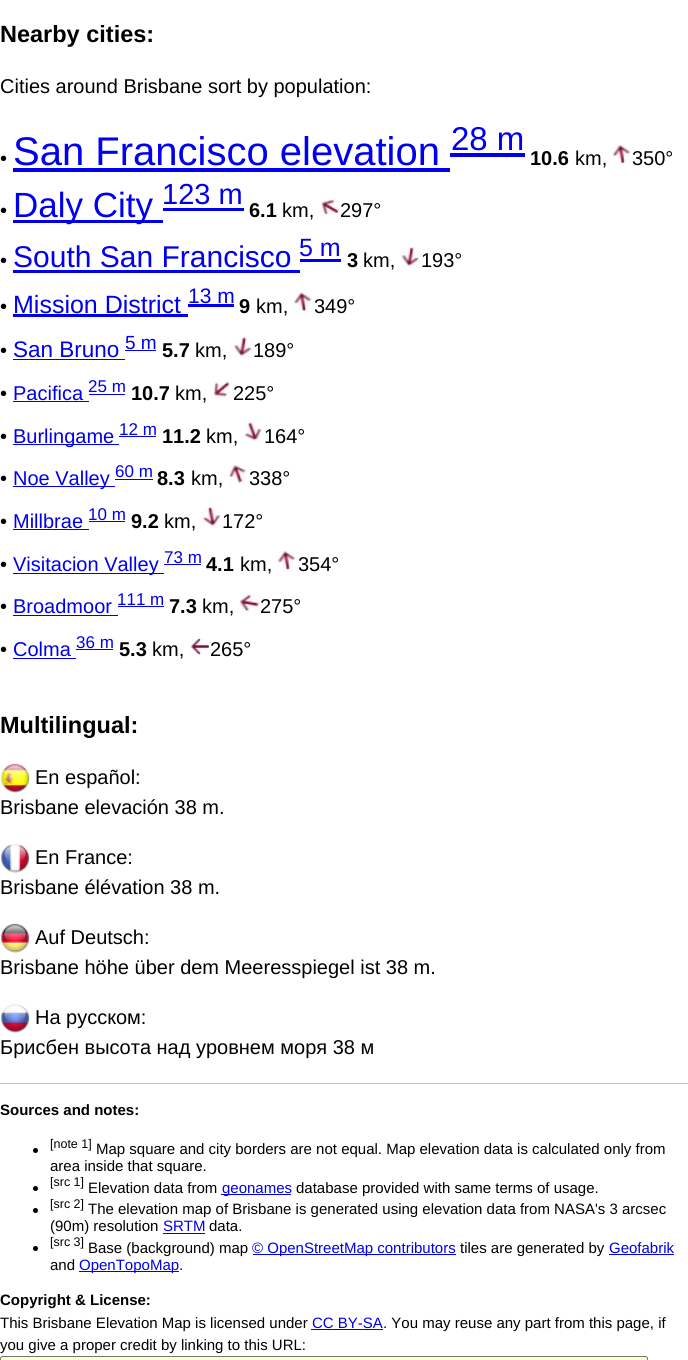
#include <cairo/cairo.h>
#include <math.h>
#include <stddef.h>

typedef struct { double x, y; const char *s; } line_t;
typedef struct { double x, y, w, h; unsigned color; } box_t;
static cairo_t *cr;

static void rgb(unsigned color)
{
	cairo_set_source_rgb(cr, (color >> 16) / 255.0, (color >> 8 & 255) / 255.0, (color & 255) / 255.0);
}

static void rrect(double x, double y, double w, double h, double r)
{
	cairo_new_sub_path(cr);
	cairo_arc(cr, x + w - r, y + h - r, r, 0, M_PI / 2);
	cairo_arc(cr, x + r, y + h - r, r, M_PI / 2, M_PI);
	cairo_arc(cr, x + r, y + r, r, M_PI, 1.5 * M_PI);
	cairo_arc(cr, x + w - r, y + r, r, 1.5 * M_PI, 2 * M_PI);
	cairo_close_path(cr);
}

static void image(const char *path, double x, double y, double w, double h)
{
	cairo_surface_t *image = cairo_image_surface_create_from_png(path);
	cairo_save(cr);
	cairo_set_source_surface(cr, image, x, y);
	cairo_rectangle(cr, x, y, w, h);
	cairo_fill(cr);
	cairo_restore(cr);
	cairo_surface_destroy(image);
}

int main(void) {
	cairo_surface_t *surface = cairo_image_surface_create(CAIRO_FORMAT_RGB24, 688, 1360);
	cr = cairo_create(surface);
	cairo_font_options_t *options = cairo_font_options_create();
	cairo_font_options_set_hint_metrics(options, CAIRO_HINT_METRICS_OFF);
	cairo_font_options_set_hint_style(options, CAIRO_HINT_STYLE_NONE);
	cairo_set_font_options(cr, options);
	cairo_set_miter_limit(cr, 4);
	rgb(0xffffff);
	cairo_paint(cr);
	rgb(0x0000ee);
	cairo_rectangle(cr, 13, 168, 437, 4);
	cairo_fill(cr);
	cairo_rectangle(cr, 450, 153, 75, 4);
	cairo_fill(cr);
	image("img/1.png", 612, 145, 19, 20);
	cairo_rectangle(cr, 13, 220, 150, 3);
	cairo_fill(cr);
	cairo_rectangle(cr, 163, 208, 81, 3);
	cairo_fill(cr);
	image("img/2.png", 320, 198, 20, 20);
	cairo_rectangle(cr, 13, 270, 287, 3);
	cairo_fill(cr);
	cairo_rectangle(cr, 300, 259, 41, 3);
	cairo_fill(cr);
	image("img/3.png", 401, 247, 20, 21);
	cairo_rectangle(cr, 13, 314, 175, 3);
	cairo_fill(cr);
	cairo_rectangle(cr, 188, 304, 46, 3);
	cairo_fill(cr);
	image("img/4.png", 293, 292, 19, 21);
	cairo_rectangle(cr, 13, 359, 112, 1);
	cairo_fill(cr);
	cairo_rectangle(cr, 125, 350, 31, 1);
	cairo_fill(cr);
	image("img/5.png", 233, 337, 21, 21);
	cairo_rectangle(cr, 13, 401, 76, 1);
	cairo_fill(cr);
	cairo_rectangle(cr, 89, 394, 36, 1);
	cairo_fill(cr);
	image("img/6.png", 213, 380, 19, 18);
	cairo_rectangle(cr, 13, 444, 106, 1);
	cairo_fill(cr);
	cairo_rectangle(cr, 119, 436, 37, 1);
	cairo_fill(cr);
	image("img/7.png", 244, 422, 20, 21);
	cairo_rectangle(cr, 13, 486, 102, 1);
	cairo_fill(cr);
	cairo_rectangle(cr, 115, 479, 38, 1);
	cairo_fill(cr);
	image("img/8.png", 229, 465, 20, 20);
	cairo_rectangle(cr, 13, 529, 76, 1);
	cairo_fill(cr);
	cairo_rectangle(cr, 89, 521, 36, 1);
	cairo_fill(cr);
	image("img/9.png", 202, 507, 19, 21);
	cairo_rectangle(cr, 13, 573, 151, 1);
	cairo_fill(cr);
	cairo_rectangle(cr, 164, 564, 37, 1);
	cairo_fill(cr);
	image("img/10.png", 277, 551, 19, 21);
	cairo_rectangle(cr, 13, 615, 105, 1);
	cairo_fill(cr);
	cairo_rectangle(cr, 118, 606, 46, 1);
	cairo_fill(cr);
	image("img/11.png", 240, 594, 20, 20);
	cairo_rectangle(cr, 13, 658, 63, 1);
	cairo_fill(cr);
	cairo_rectangle(cr, 76, 649, 37, 1);
	cairo_fill(cr);
	image("img/12.png", 190, 638, 20, 17);
	image("img/13.png", 1, 763, 29, 30);
	image("img/14.png", 1, 844, 29, 29);
	image("img/15.png", 1, 923, 29, 30);
	image("img/16.png", 1, 1004, 29, 29);
	rgb(0x99ccff);
	cairo_rectangle(cr, 0, 1083, 688, 1);
	cairo_fill(cr);
	rgb(0x000000);
	cairo_arc(cr, 35.5, 1150.5, 2.5, 0, 2 * M_PI);
	cairo_fill(cr);
	cairo_arc(cr, 35.5, 1188.5, 2.5, 0, 2 * M_PI);
	cairo_fill(cr);
	rgb(0x0000ee);
	cairo_rectangle(cr, 221, 1194, 70, 1);
	cairo_fill(cr);
	rgb(0x000000);
	cairo_arc(cr, 35.5, 1210.5, 2.5, 0, 2 * M_PI);
	cairo_fill(cr);
	rgb(0x0000ee);
	cairo_rectangle(cr, 163, 1233, 42, 1);
	cairo_fill(cr);
	rgb(0x000000);
	cairo_arc(cr, 35.5, 1248.5, 2.5, 0, 2 * M_PI);
	cairo_fill(cr);
	{
		static const box_t items[] = {
			{253, 1254, 203, 1, 0x0000ee},
			{609, 1254, 65, 1, 0x0000ee},
			{79, 1271, 100, 1, 0x0000ee},
			{311, 1329, 72, 1, 0x0000ee},
		};
		for (size_t i = 0; i < sizeof items / sizeof *items; i++) {
			rgb(items[i].color);
			cairo_rectangle(cr, items[i].x, items[i].y, items[i].w, items[i].h);
			cairo_fill(cr);
		}
	}
	rgb(0xffffcc);
	rrect(0.5, 1356.5, 647, 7, 2);
	cairo_fill_preserve(cr);
	rgb(0x767676);
	cairo_set_line_width(cr, 1);
	cairo_stroke(cr);
	cairo_select_font_face(cr, "Liberation Sans", CAIRO_FONT_SLANT_NORMAL, CAIRO_FONT_WEIGHT_BOLD);
	cairo_set_font_size(cr, 23.5);
	rgb(0x000000);
	cairo_move_to(cr, 0, 42);
	cairo_show_text(cr, "Nearby cities:");
	cairo_select_font_face(cr, "Liberation Sans", CAIRO_FONT_SLANT_NORMAL, CAIRO_FONT_WEIGHT_NORMAL);
	cairo_set_font_size(cr, 20);
	cairo_move_to(cr, 0, 93);
	cairo_show_text(cr, "Cities around Brisbane sort by population:");
	cairo_move_to(cr, 0, 165);
	cairo_show_text(cr, "•");
	cairo_set_font_size(cr, 40);
	rgb(0x0000ee);
	cairo_move_to(cr, 13, 165);
	cairo_show_text(cr, "San Francisco elevation");
	cairo_set_font_size(cr, 33);
	cairo_move_to(cr, 451, 150);
	cairo_show_text(cr, "28 m");
	cairo_select_font_face(cr, "Liberation Sans", CAIRO_FONT_SLANT_NORMAL, CAIRO_FONT_WEIGHT_BOLD);
	cairo_set_font_size(cr, 20);
	rgb(0x000000);
	cairo_move_to(cr, 530, 165);
	cairo_show_text(cr, "10.6");
	cairo_select_font_face(cr, "Liberation Sans", CAIRO_FONT_SLANT_NORMAL, CAIRO_FONT_WEIGHT_NORMAL);
	{
		static const line_t items[] = {
			{575, 165, "km,"},
			{632, 165, "350°"},
			{0, 217, "•"},
		};
		for (size_t i = 0; i < sizeof items / sizeof *items; i++) {
			cairo_move_to(cr, items[i].x, items[i].y);
			cairo_show_text(cr, items[i].s);
		}
	}
	cairo_set_font_size(cr, 35);
	rgb(0x0000ee);
	cairo_move_to(cr, 13, 217);
	cairo_show_text(cr, "Daly City");
	cairo_set_font_size(cr, 29);
	cairo_move_to(cr, 162, 204);
	cairo_show_text(cr, "123 m");
	cairo_select_font_face(cr, "Liberation Sans", CAIRO_FONT_SLANT_NORMAL, CAIRO_FONT_WEIGHT_BOLD);
	cairo_set_font_size(cr, 20);
	rgb(0x000000);
	cairo_move_to(cr, 249, 217);
	cairo_show_text(cr, "6.1");
	cairo_select_font_face(cr, "Liberation Sans", CAIRO_FONT_SLANT_NORMAL, CAIRO_FONT_WEIGHT_NORMAL);
	{
		static const line_t items[] = {
			{282, 217, "km,"},
			{340, 217, "297°"},
			{0, 267, "•"},
		};
		for (size_t i = 0; i < sizeof items / sizeof *items; i++) {
			cairo_move_to(cr, items[i].x, items[i].y);
			cairo_show_text(cr, items[i].s);
		}
	}
	cairo_set_font_size(cr, 30);
	rgb(0x0000ee);
	cairo_move_to(cr, 13, 267);
	cairo_show_text(cr, "South San Francisco");
	cairo_set_font_size(cr, 25);
	cairo_move_to(cr, 299, 256);
	cairo_show_text(cr, "5 m");
	cairo_select_font_face(cr, "Liberation Sans", CAIRO_FONT_SLANT_NORMAL, CAIRO_FONT_WEIGHT_BOLD);
	cairo_set_font_size(cr, 20);
	rgb(0x000000);
	cairo_move_to(cr, 347, 267);
	cairo_show_text(cr, "3");
	cairo_select_font_face(cr, "Liberation Sans", CAIRO_FONT_SLANT_NORMAL, CAIRO_FONT_WEIGHT_NORMAL);
	{
		static const line_t items[] = {
			{363, 267, "km,"},
			{421, 267, "193°"},
			{0, 313, "•"},
		};
		for (size_t i = 0; i < sizeof items / sizeof *items; i++) {
			cairo_move_to(cr, items[i].x, items[i].y);
			cairo_show_text(cr, items[i].s);
		}
	}
	cairo_set_font_size(cr, 25);
	rgb(0x0000ee);
	cairo_move_to(cr, 13, 313);
	cairo_show_text(cr, "Mission District");
	cairo_set_font_size(cr, 21);
	cairo_move_to(cr, 188, 303);
	cairo_show_text(cr, "13 m");
	cairo_select_font_face(cr, "Liberation Sans", CAIRO_FONT_SLANT_NORMAL, CAIRO_FONT_WEIGHT_BOLD);
	cairo_set_font_size(cr, 20);
	rgb(0x000000);
	cairo_move_to(cr, 239, 313);
	cairo_show_text(cr, "9");
	cairo_select_font_face(cr, "Liberation Sans", CAIRO_FONT_SLANT_NORMAL, CAIRO_FONT_WEIGHT_NORMAL);
	{
		static const line_t items[] = {
			{256, 313, "km,"},
			{314, 313, "349°"},
			{0, 357, "•"},
		};
		for (size_t i = 0; i < sizeof items / sizeof *items; i++) {
			cairo_move_to(cr, items[i].x, items[i].y);
			cairo_show_text(cr, items[i].s);
		}
	}
	cairo_set_font_size(cr, 22.5);
	rgb(0x0000ee);
	cairo_move_to(cr, 13, 357);
	cairo_show_text(cr, "San Bruno");
	cairo_set_font_size(cr, 19);
	cairo_move_to(cr, 125, 349);
	cairo_show_text(cr, "5 m");
	cairo_select_font_face(cr, "Liberation Sans", CAIRO_FONT_SLANT_NORMAL, CAIRO_FONT_WEIGHT_BOLD);
	cairo_set_font_size(cr, 20);
	rgb(0x000000);
	cairo_move_to(cr, 162, 357);
	cairo_show_text(cr, "5.7");
	cairo_select_font_face(cr, "Liberation Sans", CAIRO_FONT_SLANT_NORMAL, CAIRO_FONT_WEIGHT_NORMAL);
	{
		static const line_t items[] = {
			{195, 357, "km,"},
			{253, 357, "189°"},
			{0, 400, "•"},
		};
		for (size_t i = 0; i < sizeof items / sizeof *items; i++) {
			cairo_move_to(cr, items[i].x, items[i].y);
			cairo_show_text(cr, items[i].s);
		}
	}
	rgb(0x0000ee);
	cairo_move_to(cr, 13, 400);
	cairo_show_text(cr, "Pacifica");
	cairo_set_font_size(cr, 17);
	cairo_move_to(cr, 88, 392);
	cairo_show_text(cr, "25 m");
	cairo_select_font_face(cr, "Liberation Sans", CAIRO_FONT_SLANT_NORMAL, CAIRO_FONT_WEIGHT_BOLD);
	cairo_set_font_size(cr, 20);
	rgb(0x000000);
	cairo_move_to(cr, 131, 400);
	cairo_show_text(cr, "10.7");
	cairo_select_font_face(cr, "Liberation Sans", CAIRO_FONT_SLANT_NORMAL, CAIRO_FONT_WEIGHT_NORMAL);
	{
		static const line_t items[] = {
			{175, 400, "km,"},
			{233, 400, "225°"},
			{0, 443, "•"},
		};
		for (size_t i = 0; i < sizeof items / sizeof *items; i++) {
			cairo_move_to(cr, items[i].x, items[i].y);
			cairo_show_text(cr, items[i].s);
		}
	}
	rgb(0x0000ee);
	cairo_move_to(cr, 13, 443);
	cairo_show_text(cr, "Burlingame");
	cairo_set_font_size(cr, 17);
	cairo_move_to(cr, 119, 435);
	cairo_show_text(cr, "12 m");
	cairo_select_font_face(cr, "Liberation Sans", CAIRO_FONT_SLANT_NORMAL, CAIRO_FONT_WEIGHT_BOLD);
	cairo_set_font_size(cr, 20);
	rgb(0x000000);
	cairo_move_to(cr, 162, 443);
	cairo_show_text(cr, "11.2");
	cairo_select_font_face(cr, "Liberation Sans", CAIRO_FONT_SLANT_NORMAL, CAIRO_FONT_WEIGHT_NORMAL);
	{
		static const line_t items[] = {
			{206, 443, "km,"},
			{264, 443, "164°"},
			{0, 485, "•"},
		};
		for (size_t i = 0; i < sizeof items / sizeof *items; i++) {
			cairo_move_to(cr, items[i].x, items[i].y);
			cairo_show_text(cr, items[i].s);
		}
	}
	rgb(0x0000ee);
	cairo_move_to(cr, 13, 485);
	cairo_show_text(cr, "Noe Valley");
	cairo_set_font_size(cr, 17);
	cairo_move_to(cr, 115, 477);
	cairo_show_text(cr, "60 m");
	cairo_select_font_face(cr, "Liberation Sans", CAIRO_FONT_SLANT_NORMAL, CAIRO_FONT_WEIGHT_BOLD);
	cairo_set_font_size(cr, 20);
	rgb(0x000000);
	cairo_move_to(cr, 157, 485);
	cairo_show_text(cr, "8.3");
	cairo_select_font_face(cr, "Liberation Sans", CAIRO_FONT_SLANT_NORMAL, CAIRO_FONT_WEIGHT_NORMAL);
	{
		static const line_t items[] = {
			{191, 485, "km,"},
			{249, 485, "338°"},
			{0, 528, "•"},
		};
		for (size_t i = 0; i < sizeof items / sizeof *items; i++) {
			cairo_move_to(cr, items[i].x, items[i].y);
			cairo_show_text(cr, items[i].s);
		}
	}
	rgb(0x0000ee);
	cairo_move_to(cr, 13, 528);
	cairo_show_text(cr, "Millbrae");
	cairo_set_font_size(cr, 17);
	cairo_move_to(cr, 88, 520);
	cairo_show_text(cr, "10 m");
	cairo_select_font_face(cr, "Liberation Sans", CAIRO_FONT_SLANT_NORMAL, CAIRO_FONT_WEIGHT_BOLD);
	cairo_set_font_size(cr, 20);
	rgb(0x000000);
	cairo_move_to(cr, 131, 528);
	cairo_show_text(cr, "9.2");
	cairo_select_font_face(cr, "Liberation Sans", CAIRO_FONT_SLANT_NORMAL, CAIRO_FONT_WEIGHT_NORMAL);
	{
		static const line_t items[] = {
			{164, 528, "km,"},
			{222, 528, "172°"},
			{0, 571, "•"},
		};
		for (size_t i = 0; i < sizeof items / sizeof *items; i++) {
			cairo_move_to(cr, items[i].x, items[i].y);
			cairo_show_text(cr, items[i].s);
		}
	}
	rgb(0x0000ee);
	cairo_move_to(cr, 13, 571);
	cairo_show_text(cr, "Visitacion Valley");
	cairo_set_font_size(cr, 17);
	cairo_move_to(cr, 164, 563);
	cairo_show_text(cr, "73 m");
	cairo_select_font_face(cr, "Liberation Sans", CAIRO_FONT_SLANT_NORMAL, CAIRO_FONT_WEIGHT_BOLD);
	cairo_set_font_size(cr, 20);
	rgb(0x000000);
	cairo_move_to(cr, 206, 571);
	cairo_show_text(cr, "4.1");
	cairo_select_font_face(cr, "Liberation Sans", CAIRO_FONT_SLANT_NORMAL, CAIRO_FONT_WEIGHT_NORMAL);
	{
		static const line_t items[] = {
			{240, 571, "km,"},
			{298, 571, "354°"},
			{0, 613, "•"},
		};
		for (size_t i = 0; i < sizeof items / sizeof *items; i++) {
			cairo_move_to(cr, items[i].x, items[i].y);
			cairo_show_text(cr, items[i].s);
		}
	}
	rgb(0x0000ee);
	cairo_move_to(cr, 13, 613);
	cairo_show_text(cr, "Broadmoor");
	cairo_set_font_size(cr, 17);
	cairo_move_to(cr, 117, 605);
	cairo_show_text(cr, "111 m");
	cairo_select_font_face(cr, "Liberation Sans", CAIRO_FONT_SLANT_NORMAL, CAIRO_FONT_WEIGHT_BOLD);
	cairo_set_font_size(cr, 20);
	rgb(0x000000);
	cairo_move_to(cr, 169, 613);
	cairo_show_text(cr, "7.3");
	cairo_select_font_face(cr, "Liberation Sans", CAIRO_FONT_SLANT_NORMAL, CAIRO_FONT_WEIGHT_NORMAL);
	{
		static const line_t items[] = {
			{202, 613, "km,"},
			{260, 613, "275°"},
			{0, 656, "•"},
		};
		for (size_t i = 0; i < sizeof items / sizeof *items; i++) {
			cairo_move_to(cr, items[i].x, items[i].y);
			cairo_show_text(cr, items[i].s);
		}
	}
	rgb(0x0000ee);
	cairo_move_to(cr, 13, 656);
	cairo_show_text(cr, "Colma");
	cairo_set_font_size(cr, 17);
	cairo_move_to(cr, 76, 648);
	cairo_show_text(cr, "36 m");
	cairo_select_font_face(cr, "Liberation Sans", CAIRO_FONT_SLANT_NORMAL, CAIRO_FONT_WEIGHT_BOLD);
	cairo_set_font_size(cr, 20);
	rgb(0x000000);
	cairo_move_to(cr, 119, 656);
	cairo_show_text(cr, "5.3");
	cairo_select_font_face(cr, "Liberation Sans", CAIRO_FONT_SLANT_NORMAL, CAIRO_FONT_WEIGHT_NORMAL);
	cairo_move_to(cr, 152, 656);
	cairo_show_text(cr, "km,");
	cairo_move_to(cr, 210, 656);
	cairo_show_text(cr, "265°");
	cairo_select_font_face(cr, "Liberation Sans", CAIRO_FONT_SLANT_NORMAL, CAIRO_FONT_WEIGHT_BOLD);
	cairo_set_font_size(cr, 23.5);
	cairo_move_to(cr, 0, 733);
	cairo_show_text(cr, "Multilingual:");
	cairo_select_font_face(cr, "Liberation Sans", CAIRO_FONT_SLANT_NORMAL, CAIRO_FONT_WEIGHT_NORMAL);
	cairo_set_font_size(cr, 20);
	{
		static const line_t items[] = {
			{35, 784, "En español:"},
			{0, 814, "Brisbane elevación 38 m."},
			{35, 864, "En France:"},
			{0, 894, "Brisbane élévation 38 m."},
			{35, 944, "Auf Deutsch:"},
			{0, 974, "Brisbane höhe über dem Meeresspiegel ist 38 m."},
			{35, 1024, "На русском:"},
			{0, 1054, "Брисбен высота над уровнем моря 38 м"},
		};
		for (size_t i = 0; i < sizeof items / sizeof *items; i++) {
			cairo_move_to(cr, items[i].x, items[i].y);
			cairo_show_text(cr, items[i].s);
		}
	}
	cairo_select_font_face(cr, "Liberation Sans", CAIRO_FONT_SLANT_NORMAL, CAIRO_FONT_WEIGHT_BOLD);
	cairo_set_font_size(cr, 15);
	cairo_move_to(cr, 0, 1115);
	cairo_show_text(cr, "Sources and notes:");
	cairo_select_font_face(cr, "Liberation Sans", CAIRO_FONT_SLANT_NORMAL, CAIRO_FONT_WEIGHT_NORMAL);
	cairo_set_font_size(cr, 12.5);
	cairo_move_to(cr, 50, 1148);
	cairo_show_text(cr, "[note 1]");
	cairo_set_font_size(cr, 15);
	cairo_move_to(cr, 96, 1154);
	cairo_show_text(cr, "Map square and city borders are not equal. Map elevation data is calculated only from");
	cairo_move_to(cr, 50, 1171);
	cairo_show_text(cr, "area inside that square.");
	cairo_set_font_size(cr, 12.5);
	cairo_move_to(cr, 50, 1186);
	cairo_show_text(cr, "[src 1]");
	cairo_set_font_size(cr, 15);
	cairo_move_to(cr, 88, 1193);
	cairo_show_text(cr, "Elevation data from");
	rgb(0x0000ee);
	cairo_move_to(cr, 222, 1193);
	cairo_show_text(cr, "geonames");
	rgb(0x000000);
	cairo_move_to(cr, 296, 1193);
	cairo_show_text(cr, "database provided with same terms of usage.");
	cairo_set_font_size(cr, 12.5);
	cairo_move_to(cr, 50, 1208);
	cairo_show_text(cr, "[src 2]");
	cairo_set_font_size(cr, 15);
	cairo_move_to(cr, 88, 1214);
	cairo_show_text(cr, "The elevation map of Brisbane is generated using elevation data from NASA's 3 arcsec");
	cairo_move_to(cr, 50, 1231);
	cairo_show_text(cr, "(90m) resolution");
	rgb(0x0000ee);
	cairo_move_to(cr, 163, 1231);
	cairo_show_text(cr, "SRTM");
	rgb(0x000000);
	cairo_move_to(cr, 209, 1231);
	cairo_show_text(cr, "data.");
	cairo_set_font_size(cr, 12.5);
	cairo_move_to(cr, 50, 1246);
	cairo_show_text(cr, "[src 3]");
	cairo_set_font_size(cr, 15);
	cairo_move_to(cr, 88, 1253);
	cairo_show_text(cr, "Base (background) map");
	rgb(0x0000ee);
	cairo_move_to(cr, 252, 1253);
	cairo_show_text(cr, "© OpenStreetMap contributors");
	rgb(0x000000);
	cairo_move_to(cr, 460, 1253);
	cairo_show_text(cr, "tiles are generated by");
	rgb(0x0000ee);
	cairo_move_to(cr, 609, 1253);
	cairo_show_text(cr, "Geofabrik");
	rgb(0x000000);
	cairo_move_to(cr, 50, 1270);
	cairo_show_text(cr, "and");
	rgb(0x0000ee);
	cairo_move_to(cr, 79, 1270);
	cairo_show_text(cr, "OpenTopoMap");
	rgb(0x000000);
	cairo_move_to(cr, 179, 1270);
	cairo_show_text(cr, ".");
	cairo_select_font_face(cr, "Liberation Sans", CAIRO_FONT_SLANT_NORMAL, CAIRO_FONT_WEIGHT_BOLD);
	cairo_move_to(cr, 0, 1305);
	cairo_show_text(cr, "Copyright & License:");
	cairo_select_font_face(cr, "Liberation Sans", CAIRO_FONT_SLANT_NORMAL, CAIRO_FONT_WEIGHT_NORMAL);
	cairo_move_to(cr, 0, 1328);
	cairo_show_text(cr, "This Brisbane Elevation Map is licensed under");
	rgb(0x0000ee);
	cairo_move_to(cr, 312, 1328);
	cairo_show_text(cr, "CC BY-SA");
	rgb(0x000000);
	cairo_move_to(cr, 383, 1328);
	cairo_show_text(cr, ". You may reuse any part from this page, if");
	cairo_move_to(cr, 0, 1350);
	cairo_show_text(cr, "you give a proper credit by linking to this URL:");
	cairo_surface_write_to_png(surface, "page.png");
	cairo_font_options_destroy(options);
	cairo_destroy(cr);
	cairo_surface_destroy(surface);
	return 0;
}
